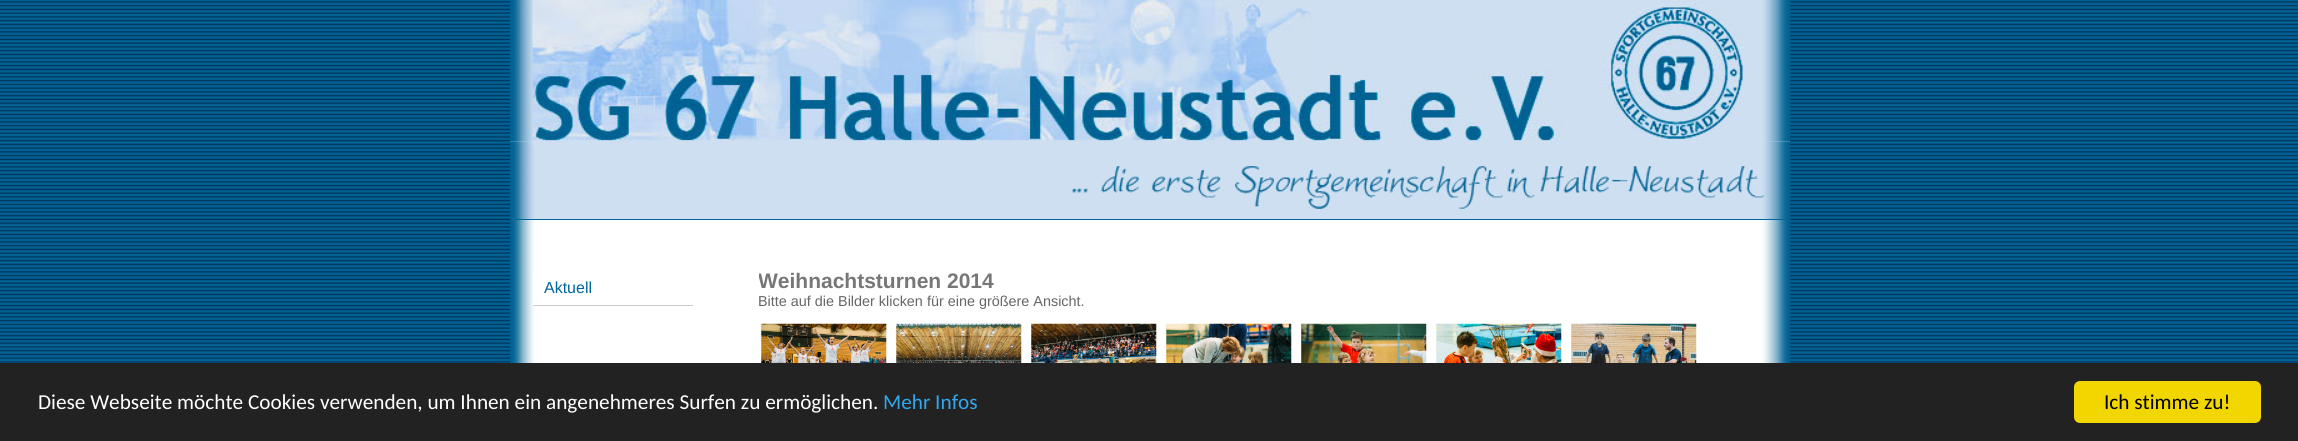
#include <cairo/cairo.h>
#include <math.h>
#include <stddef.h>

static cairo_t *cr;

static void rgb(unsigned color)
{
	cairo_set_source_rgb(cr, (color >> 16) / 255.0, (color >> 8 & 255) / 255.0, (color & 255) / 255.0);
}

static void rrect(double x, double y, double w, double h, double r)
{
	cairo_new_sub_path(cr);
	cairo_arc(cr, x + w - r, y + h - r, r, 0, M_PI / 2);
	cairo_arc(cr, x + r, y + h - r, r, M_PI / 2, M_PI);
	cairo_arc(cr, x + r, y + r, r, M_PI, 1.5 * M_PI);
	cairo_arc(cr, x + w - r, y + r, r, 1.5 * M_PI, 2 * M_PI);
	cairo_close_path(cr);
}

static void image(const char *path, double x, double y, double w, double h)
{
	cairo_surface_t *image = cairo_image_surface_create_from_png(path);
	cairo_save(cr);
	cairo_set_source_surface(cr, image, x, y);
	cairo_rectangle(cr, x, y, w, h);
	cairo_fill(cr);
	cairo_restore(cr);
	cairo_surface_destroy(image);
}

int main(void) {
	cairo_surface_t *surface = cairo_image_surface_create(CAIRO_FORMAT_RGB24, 2298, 441);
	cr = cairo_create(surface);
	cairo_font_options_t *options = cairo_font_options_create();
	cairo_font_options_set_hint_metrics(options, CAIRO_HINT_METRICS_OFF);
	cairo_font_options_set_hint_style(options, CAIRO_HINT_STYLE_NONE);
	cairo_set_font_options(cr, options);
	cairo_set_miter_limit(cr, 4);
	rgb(0xffffff);
	cairo_paint(cr);
	image("img/1.png", 0, 0, 2298, 363);
	rgb(0xffffff);
	cairo_rectangle(cr, 512, 220, 1277, 143);
	cairo_fill(cr);
	rgb(0xcedff1);
	cairo_rectangle(cr, 512, 0, 1277, 141);
	cairo_fill(cr);
	image("img/2.png", 510, 0, 1280, 141);
	cairo_rectangle(cr, 510, 141, 1280, 78);
	cairo_fill(cr);
	image("img/4.png", 510, 141, 1280, 78);
	image("img/3.png", 532, 0, 1211, 146);
	rgb(0x006699);
	cairo_rectangle(cr, 510, 219, 1280, 1);
	cairo_fill(cr);
	image("img/5.png", 1072, 166, 692, 43);
	image("img/6.png", 510, 220, 1280, 143);
	rgb(0xcccccc);
	cairo_rectangle(cr, 533, 305, 160, 1);
	cairo_fill(cr);
	rgb(0xffffff);
	cairo_rectangle(cr, 533, 270, 2, 35);
	cairo_fill(cr);
	image("img/7.png", 761, 323, 126, 40);
	image("img/8.png", 896, 323, 126, 40);
	image("img/9.png", 1031, 323, 126, 40);
	image("img/10.png", 1166, 323, 126, 40);
	image("img/11.png", 1301, 323, 126, 40);
	image("img/12.png", 1436, 323, 126, 40);
	image("img/13.png", 1571, 323, 126, 40);
	rgb(0x222222);
	cairo_rectangle(cr, 0, 363, 2298, 78);
	cairo_fill(cr);
	rgb(0xf1d600);
	rrect(2074, 381, 187, 42, 6);
	cairo_fill(cr);
	cairo_select_font_face(cr, "Liberation Sans", CAIRO_FONT_SLANT_NORMAL, CAIRO_FONT_WEIGHT_NORMAL);
	cairo_set_font_size(cr, 16);
	rgb(0x006699);
	cairo_move_to(cr, 544, 293);
	cairo_show_text(cr, "Aktuell");
	cairo_save(cr);
	cairo_rectangle(cr, 759, 270, 996, 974);
	cairo_clip(cr);
	cairo_select_font_face(cr, "Liberation Sans", CAIRO_FONT_SLANT_NORMAL, CAIRO_FONT_WEIGHT_BOLD);
	cairo_set_font_size(cr, 21);
	rgb(0x777777);
	cairo_move_to(cr, 758, 288);
	cairo_show_text(cr, "Weihnachtsturnen 2014");
	cairo_restore(cr);
	cairo_set_font_size(cr, 14.4);
	rgb(0x666666);
	cairo_move_to(cr, 758, 306);
	cairo_show_text(cr, "Bitte auf die Bilder klicken für eine größere Ansicht.");
	cairo_select_font_face(cr, "Carlito", CAIRO_FONT_SLANT_NORMAL, CAIRO_FONT_WEIGHT_NORMAL);
	cairo_set_font_size(cr, 21.25);
	rgb(0xffffff);
	cairo_move_to(cr, 38, 409);
	cairo_show_text(cr, "Diese Webseite möchte Cookies verwenden, um Ihnen ein angenehmeres Surfen zu ermöglichen.");
	rgb(0x31a8f0);
	cairo_move_to(cr, 883, 409);
	cairo_show_text(cr, "Mehr Infos");
	rgb(0x000000);
	cairo_move_to(cr, 2104, 409);
	cairo_show_text(cr, "Ich stimme zu!");
	cairo_surface_write_to_png(surface, "page.png");
	cairo_font_options_destroy(options);
	cairo_destroy(cr);
	cairo_surface_destroy(surface);
	return 0;
}
